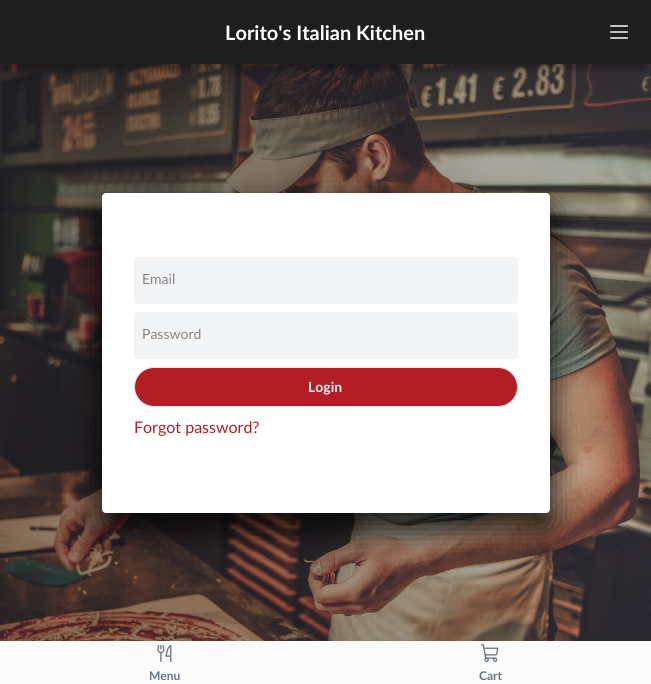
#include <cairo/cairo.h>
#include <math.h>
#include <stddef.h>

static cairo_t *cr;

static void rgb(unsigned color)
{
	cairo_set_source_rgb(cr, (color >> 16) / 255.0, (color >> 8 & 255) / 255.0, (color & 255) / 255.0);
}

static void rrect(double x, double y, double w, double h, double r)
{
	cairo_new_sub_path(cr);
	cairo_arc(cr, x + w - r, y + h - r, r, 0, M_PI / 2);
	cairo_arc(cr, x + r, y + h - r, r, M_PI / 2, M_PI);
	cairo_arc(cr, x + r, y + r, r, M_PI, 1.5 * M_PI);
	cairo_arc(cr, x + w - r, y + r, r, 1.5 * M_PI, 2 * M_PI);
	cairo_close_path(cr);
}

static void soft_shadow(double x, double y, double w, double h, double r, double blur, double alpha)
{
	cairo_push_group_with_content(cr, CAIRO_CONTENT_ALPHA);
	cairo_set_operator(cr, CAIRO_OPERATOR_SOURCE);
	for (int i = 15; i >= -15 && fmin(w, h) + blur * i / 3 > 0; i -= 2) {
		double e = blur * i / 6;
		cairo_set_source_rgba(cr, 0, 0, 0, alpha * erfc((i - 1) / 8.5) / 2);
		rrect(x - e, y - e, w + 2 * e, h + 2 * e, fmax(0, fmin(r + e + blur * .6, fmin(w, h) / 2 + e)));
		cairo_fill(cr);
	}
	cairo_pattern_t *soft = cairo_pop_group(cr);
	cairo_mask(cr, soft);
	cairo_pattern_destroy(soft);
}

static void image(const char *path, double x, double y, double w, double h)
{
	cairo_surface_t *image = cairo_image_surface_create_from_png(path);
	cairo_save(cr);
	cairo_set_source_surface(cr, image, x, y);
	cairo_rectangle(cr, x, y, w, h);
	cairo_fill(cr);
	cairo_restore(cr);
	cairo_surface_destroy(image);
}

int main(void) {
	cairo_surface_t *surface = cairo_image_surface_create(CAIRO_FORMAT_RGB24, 651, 684);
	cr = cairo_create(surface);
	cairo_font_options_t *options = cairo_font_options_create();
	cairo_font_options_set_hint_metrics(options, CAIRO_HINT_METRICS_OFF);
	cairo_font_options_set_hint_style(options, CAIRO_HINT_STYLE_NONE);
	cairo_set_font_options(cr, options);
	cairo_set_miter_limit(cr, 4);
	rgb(0xffffff);
	cairo_paint(cr);
	image("img/2.png", 0, 64, 651, 577);
	rgb(0x000000);
	soft_shadow(4, 14, 643, 56, 0, 2.5, 0.25);
	rgb(0x1e1e1e);
	cairo_rectangle(cr, 0, 0, 651, 64);
	cairo_fill(cr);
	image("img/1.png", 610, 25, 18, 14);
	rgb(0x000000);
	soft_shadow(97, 203, 458, 330, 9, 15, 0.75);
	rgb(0xffffff);
	rrect(102, 193, 448, 320, 4);
	cairo_fill(cr);
	rgb(0xf3f4f6);
	rrect(134, 257, 384, 47, 4);
	cairo_fill(cr);
	rrect(134, 312, 384, 47, 4);
	cairo_fill(cr);
	rgb(0xb21e23);
	rrect(134.5, 367.5, 383, 39, 19.5);
	cairo_fill_preserve(cr);
	rgb(0xe5e7eb);
	cairo_set_line_width(cr, 1);
	cairo_stroke(cr);
	rgb(0xfafafa);
	cairo_rectangle(cr, 0, 641, 651, 43);
	cairo_fill(cr);
	image("img/3.png", 157, 645, 15, 17);
	image("img/4.png", 480, 644, 19, 18);
	cairo_select_font_face(cr, "Lato", CAIRO_FONT_SLANT_NORMAL, CAIRO_FONT_WEIGHT_BOLD);
	cairo_set_font_size(cr, 20);
	rgb(0xffffff);
	cairo_move_to(cr, 225, 40);
	cairo_show_text(cr, "Lorito's Italian Kitchen");
	cairo_select_font_face(cr, "Lato", CAIRO_FONT_SLANT_NORMAL, CAIRO_FONT_WEIGHT_NORMAL);
	cairo_set_font_size(cr, 14);
	rgb(0x848485);
	cairo_move_to(cr, 142, 284);
	cairo_show_text(cr, "Email");
	cairo_move_to(cr, 142, 339);
	cairo_show_text(cr, "Password");
	cairo_select_font_face(cr, "Lato", CAIRO_FONT_SLANT_NORMAL, CAIRO_FONT_WEIGHT_BOLD);
	rgb(0xf5f5f5);
	cairo_move_to(cr, 308, 392);
	cairo_show_text(cr, "Login");
	cairo_select_font_face(cr, "Lato", CAIRO_FONT_SLANT_NORMAL, CAIRO_FONT_WEIGHT_NORMAL);
	cairo_set_font_size(cr, 16);
	rgb(0xb21e23);
	cairo_move_to(cr, 134, 433);
	cairo_show_text(cr, "Forgot password?");
	cairo_select_font_face(cr, "Lato", CAIRO_FONT_SLANT_NORMAL, CAIRO_FONT_WEIGHT_BOLD);
	cairo_set_font_size(cr, 12);
	rgb(0x6b7280);
	cairo_move_to(cr, 149, 680);
	cairo_show_text(cr, "Menu");
	cairo_move_to(cr, 479, 680);
	cairo_show_text(cr, "Cart");
	cairo_surface_write_to_png(surface, "page.png");
	cairo_font_options_destroy(options);
	cairo_destroy(cr);
	cairo_surface_destroy(surface);
	return 0;
}
